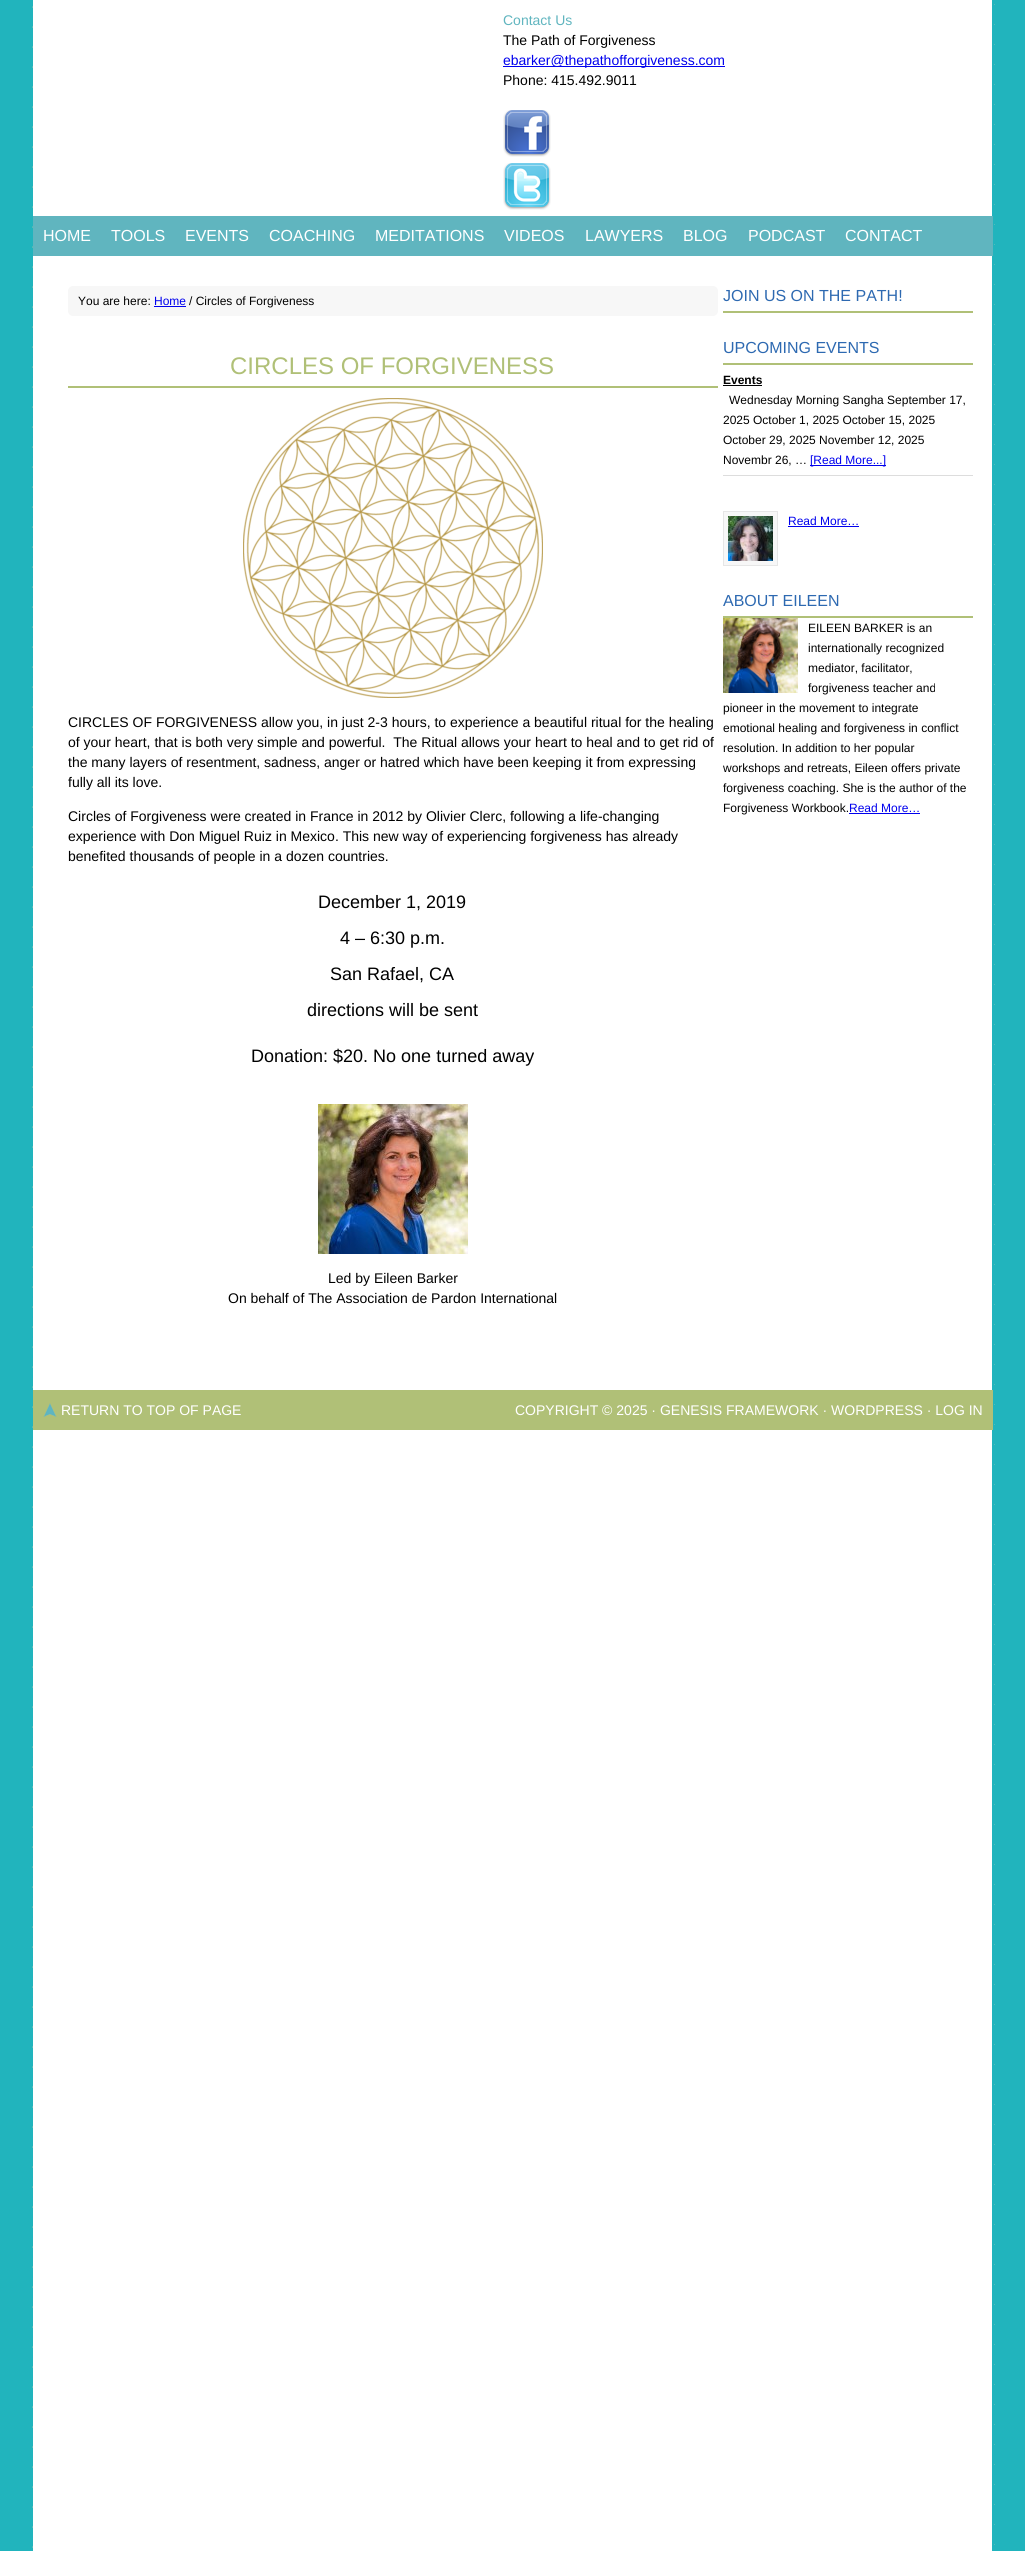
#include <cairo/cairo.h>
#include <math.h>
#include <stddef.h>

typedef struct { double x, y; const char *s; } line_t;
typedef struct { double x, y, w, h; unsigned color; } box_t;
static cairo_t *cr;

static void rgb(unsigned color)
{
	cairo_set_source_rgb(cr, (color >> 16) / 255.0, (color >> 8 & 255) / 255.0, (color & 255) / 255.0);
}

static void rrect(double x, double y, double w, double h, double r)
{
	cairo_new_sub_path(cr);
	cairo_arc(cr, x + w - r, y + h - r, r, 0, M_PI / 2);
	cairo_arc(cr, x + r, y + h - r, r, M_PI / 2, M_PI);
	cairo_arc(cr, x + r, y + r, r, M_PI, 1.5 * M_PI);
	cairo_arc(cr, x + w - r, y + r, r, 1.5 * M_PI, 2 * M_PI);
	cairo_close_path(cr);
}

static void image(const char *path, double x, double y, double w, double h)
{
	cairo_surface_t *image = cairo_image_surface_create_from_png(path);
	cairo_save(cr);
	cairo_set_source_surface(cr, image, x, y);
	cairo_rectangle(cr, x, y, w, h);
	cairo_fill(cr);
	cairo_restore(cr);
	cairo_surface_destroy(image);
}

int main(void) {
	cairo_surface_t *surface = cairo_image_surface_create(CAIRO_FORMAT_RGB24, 1025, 2551);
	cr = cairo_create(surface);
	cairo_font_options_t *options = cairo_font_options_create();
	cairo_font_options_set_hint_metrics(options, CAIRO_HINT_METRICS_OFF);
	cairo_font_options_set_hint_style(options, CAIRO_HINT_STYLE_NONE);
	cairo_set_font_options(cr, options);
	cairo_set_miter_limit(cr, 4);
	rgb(0x21b4bd);
	cairo_paint(cr);
	image("img/1.png", 32, 0, 963, 2551);
	rgb(0x0000ee);
	cairo_rectangle(cr, 503, 66, 222, 1);
	cairo_fill(cr);
	image("img/2.png", 503, 110, 48, 47);
	image("img/3.png", 503, 163, 48, 47);
	rgb(0x60b5bf);
	cairo_rectangle(cr, 33, 216, 960, 40);
	cairo_fill(cr);
	rgb(0xf7f7f7);
	rrect(68, 286, 650, 30, 5);
	cairo_fill(cr);
	rgb(0x0000ee);
	cairo_rectangle(cr, 154, 306, 32, 1);
	cairo_fill(cr);
	rgb(0xb0c077);
	cairo_rectangle(cr, 68, 386, 650, 2);
	cairo_fill(cr);
	image("img/4.png", 243, 398, 300, 300);
	image("img/5.png", 318, 1104, 150, 150);
	{
		static const box_t items[] = {
			{723, 311, 250, 2, 0xb0c077},
			{723, 363, 250, 2, 0xb0c077},
			{723, 475, 250, 1, 0xdddddd},
			{723, 385, 39, 1, 0x000000},
			{810, 465, 76, 1, 0x0000ee},
		};
		for (size_t i = 0; i < sizeof items / sizeof *items; i++) {
			rgb(items[i].color);
			cairo_rectangle(cr, items[i].x, items[i].y, items[i].w, items[i].h);
			cairo_fill(cr);
		}
	}
	rgb(0xf7f7f7);
	cairo_rectangle(cr, 723.5, 511.5, 54, 54);
	cairo_fill_preserve(cr);
	rgb(0xe6e6e6);
	cairo_set_line_width(cr, 1);
	cairo_stroke(cr);
	image("img/6.png", 728, 516, 45, 45);
	rgb(0x0000ee);
	cairo_rectangle(cr, 788, 526, 71, 1);
	cairo_fill(cr);
	rgb(0xb0c077);
	cairo_rectangle(cr, 723, 616, 250, 2);
	cairo_fill(cr);
	image("img/7.png", 723, 618, 75, 75);
	rgb(0x0000ee);
	cairo_rectangle(cr, 849, 813, 71, 1);
	cairo_fill(cr);
	rgb(0xb0c077);
	cairo_rectangle(cr, 33, 1390, 960, 40);
	cairo_fill(cr);
	image("img/8.png", 43, 1403, 14, 14);
	cairo_select_font_face(cr, "Liberation Sans", CAIRO_FONT_SLANT_NORMAL, CAIRO_FONT_WEIGHT_NORMAL);
	cairo_set_font_size(cr, 14);
	rgb(0x60b5bf);
	cairo_move_to(cr, 503, 25);
	cairo_show_text(cr, "Contact Us");
	rgb(0x000000);
	cairo_move_to(cr, 503, 45);
	cairo_show_text(cr, "The Path of Forgiveness");
	rgb(0x0000ee);
	cairo_move_to(cr, 503, 65);
	cairo_show_text(cr, "ebarker@thepathofforgiveness.com");
	rgb(0x000000);
	cairo_move_to(cr, 503, 85);
	cairo_show_text(cr, "Phone: 415.492.9011");
	cairo_set_font_size(cr, 16);
	rgb(0xffffff);
	{
		static const line_t items[] = {
			{43, 241, "HOME"},
			{111, 241, "TOOLS"},
			{185, 241, "EVENTS"},
			{269, 241, "COACHING"},
			{375, 241, "MEDITATIONS"},
			{504, 241, "VIDEOS"},
			{585, 241, "LAWYERS"},
			{683, 241, "BLOG"},
			{748, 241, "PODCAST"},
			{845, 241, "CONTACT"},
		};
		for (size_t i = 0; i < sizeof items / sizeof *items; i++) {
			cairo_move_to(cr, items[i].x, items[i].y);
			cairo_show_text(cr, items[i].s);
		}
	}
	cairo_set_font_size(cr, 12);
	rgb(0x000000);
	cairo_move_to(cr, 78, 305);
	cairo_show_text(cr, "You are here:");
	rgb(0x0000ee);
	cairo_move_to(cr, 154, 305);
	cairo_show_text(cr, "Home");
	rgb(0x000000);
	cairo_move_to(cr, 189, 305);
	cairo_show_text(cr, "/ Circles of Forgiveness");
	cairo_set_font_size(cr, 24);
	rgb(0xb0c077);
	cairo_move_to(cr, 230, 374);
	cairo_show_text(cr, "CIRCLES OF FORGIVENESS");
	cairo_set_font_size(cr, 14);
	rgb(0x000000);
	{
		static const line_t items[] = {
			{68, 727, "CIRCLES OF FORGIVENESS allow you, in just 2-3 hours, to experience a beautiful ritual for the healing"},
			{68, 747, "of your heart, that is both very simple and powerful.  The Ritual allows your heart to heal and to get rid of"},
			{68, 767, "the many layers of resentment, sadness, anger or hatred which have been keeping it from expressing"},
			{68, 787, "fully all its love."},
			{68, 821, "Circles of Forgiveness were created in France in 2012 by Olivier Clerc, following a life-changing"},
			{68, 841, "experience with Don Miguel Ruiz in Mexico. This new way of experiencing forgiveness has already"},
			{68, 861, "benefited thousands of people in a dozen countries."},
		};
		for (size_t i = 0; i < sizeof items / sizeof *items; i++) {
			cairo_move_to(cr, items[i].x, items[i].y);
			cairo_show_text(cr, items[i].s);
		}
	}
	cairo_set_font_size(cr, 18);
	{
		static const line_t items[] = {
			{318, 908, "December 1, 2019"},
			{340, 944, "4 – 6:30 p.m."},
			{330, 980, "San Rafael, CA"},
			{307, 1016, "directions will be sent"},
			{251, 1062, "Donation: $20. No one turned away"},
		};
		for (size_t i = 0; i < sizeof items / sizeof *items; i++) {
			cairo_move_to(cr, items[i].x, items[i].y);
			cairo_show_text(cr, items[i].s);
		}
	}
	cairo_set_font_size(cr, 14);
	cairo_move_to(cr, 328, 1283);
	cairo_show_text(cr, "Led by Eileen Barker");
	cairo_move_to(cr, 228, 1303);
	cairo_show_text(cr, "On behalf of The Association de Pardon International");
	cairo_set_font_size(cr, 16);
	rgb(0x2d69b1);
	cairo_move_to(cr, 723, 301);
	cairo_show_text(cr, "JOIN US ON THE PATH!");
	cairo_move_to(cr, 723, 353);
	cairo_show_text(cr, "UPCOMING EVENTS");
	cairo_select_font_face(cr, "Liberation Sans", CAIRO_FONT_SLANT_NORMAL, CAIRO_FONT_WEIGHT_BOLD);
	cairo_set_font_size(cr, 12);
	rgb(0x000000);
	cairo_move_to(cr, 723, 384);
	cairo_show_text(cr, "Events");
	cairo_select_font_face(cr, "Liberation Sans", CAIRO_FONT_SLANT_NORMAL, CAIRO_FONT_WEIGHT_NORMAL);
	{
		static const line_t items[] = {
			{729, 404, "Wednesday Morning Sangha September 17,"},
			{723, 424, "2025 October 1, 2025 October 15, 2025"},
			{723, 444, "October 29, 2025 November 12, 2025"},
			{723, 464, "Novembr 26, …"},
		};
		for (size_t i = 0; i < sizeof items / sizeof *items; i++) {
			cairo_move_to(cr, items[i].x, items[i].y);
			cairo_show_text(cr, items[i].s);
		}
	}
	rgb(0x0000ee);
	cairo_move_to(cr, 810, 464);
	cairo_show_text(cr, "[Read More...]");
	cairo_move_to(cr, 788, 525);
	cairo_show_text(cr, "Read More…");
	cairo_set_font_size(cr, 16);
	rgb(0x2d69b1);
	cairo_move_to(cr, 723, 606);
	cairo_show_text(cr, "ABOUT EILEEN");
	cairo_set_font_size(cr, 12);
	rgb(0x000000);
	{
		static const line_t items[] = {
			{808, 632, "EILEEN BARKER is an"},
			{808, 652, "internationally recognized"},
			{808, 672, "mediator, facilitator,"},
			{808, 692, "forgiveness teacher and"},
			{723, 712, "pioneer in the movement to integrate"},
			{723, 732, "emotional healing and forgiveness in conflict"},
			{723, 752, "resolution. In addition to her popular"},
			{723, 772, "workshops and retreats, Eileen offers private"},
			{723, 792, "forgiveness coaching. She is the author of the"},
			{723, 812, "Forgiveness Workbook."},
		};
		for (size_t i = 0; i < sizeof items / sizeof *items; i++) {
			cairo_move_to(cr, items[i].x, items[i].y);
			cairo_show_text(cr, items[i].s);
		}
	}
	rgb(0x0000ee);
	cairo_move_to(cr, 849, 812);
	cairo_show_text(cr, "Read More…");
	cairo_set_font_size(cr, 14);
	rgb(0xffffff);
	cairo_move_to(cr, 61, 1415);
	cairo_show_text(cr, "RETURN TO TOP OF PAGE");
	cairo_move_to(cr, 515, 1415);
	cairo_show_text(cr, "COPYRIGHT © 2025 · GENESIS FRAMEWORK · WORDPRESS · LOG IN");
	cairo_surface_write_to_png(surface, "page.png");
	cairo_font_options_destroy(options);
	cairo_destroy(cr);
	cairo_surface_destroy(surface);
	return 0;
}
